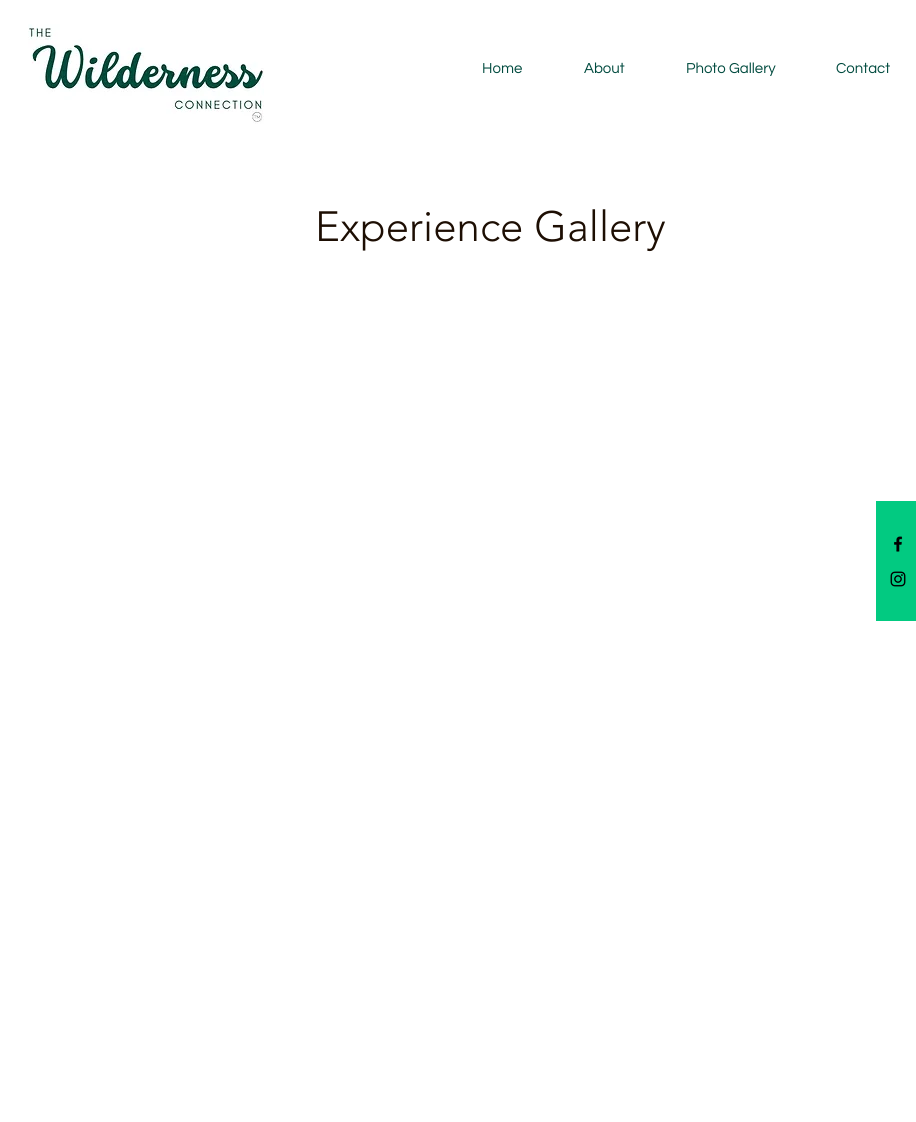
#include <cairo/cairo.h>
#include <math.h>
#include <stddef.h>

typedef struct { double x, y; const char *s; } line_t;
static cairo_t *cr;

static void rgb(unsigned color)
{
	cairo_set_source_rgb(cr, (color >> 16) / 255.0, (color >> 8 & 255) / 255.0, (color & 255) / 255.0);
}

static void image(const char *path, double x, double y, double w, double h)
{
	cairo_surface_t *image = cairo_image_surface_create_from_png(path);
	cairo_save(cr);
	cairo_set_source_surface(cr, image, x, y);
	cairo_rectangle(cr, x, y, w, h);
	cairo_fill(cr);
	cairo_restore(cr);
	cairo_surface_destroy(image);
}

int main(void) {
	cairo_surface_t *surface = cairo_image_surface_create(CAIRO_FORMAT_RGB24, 916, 1122);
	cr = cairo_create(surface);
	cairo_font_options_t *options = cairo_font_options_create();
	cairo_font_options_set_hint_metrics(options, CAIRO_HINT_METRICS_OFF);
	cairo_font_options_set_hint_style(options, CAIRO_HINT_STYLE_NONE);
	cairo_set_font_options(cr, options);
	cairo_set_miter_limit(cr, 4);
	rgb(0xffffff);
	cairo_paint(cr);
	image("img/1.png", 28, 24, 236, 100);
	rgb(0x02ca81);
	cairo_rectangle(cr, 876, 501, 40, 120);
	cairo_fill(cr);
	image("img/2.png", 894, 536, 9, 16);
	image("img/3.png", 890, 571, 16, 16);
	cairo_select_font_face(cr, "Questrial", CAIRO_FONT_SLANT_NORMAL, CAIRO_FONT_WEIGHT_NORMAL);
	cairo_set_font_size(cr, 15);
	rgb(0x014b3f);
	{
		static const line_t items[] = {
			{482, 73, "Home"},
			{584, 73, "About"},
			{686, 73, "Photo Gallery"},
			{836, 73, "Contact"},
		};
		for (size_t i = 0; i < sizeof items / sizeof *items; i++) {
			cairo_move_to(cr, items[i].x, items[i].y);
			cairo_show_text(cr, items[i].s);
		}
	}
	cairo_select_font_face(cr, "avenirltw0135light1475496 Light", CAIRO_FONT_SLANT_NORMAL, CAIRO_FONT_WEIGHT_NORMAL);
	cairo_set_font_size(cr, 42);
	rgb(0x1d0e03);
	cairo_move_to(cr, 315, 241);
	cairo_show_text(cr, "Experience Gallery");
	cairo_surface_write_to_png(surface, "page.png");
	cairo_font_options_destroy(options);
	cairo_destroy(cr);
	cairo_surface_destroy(surface);
	return 0;
}
